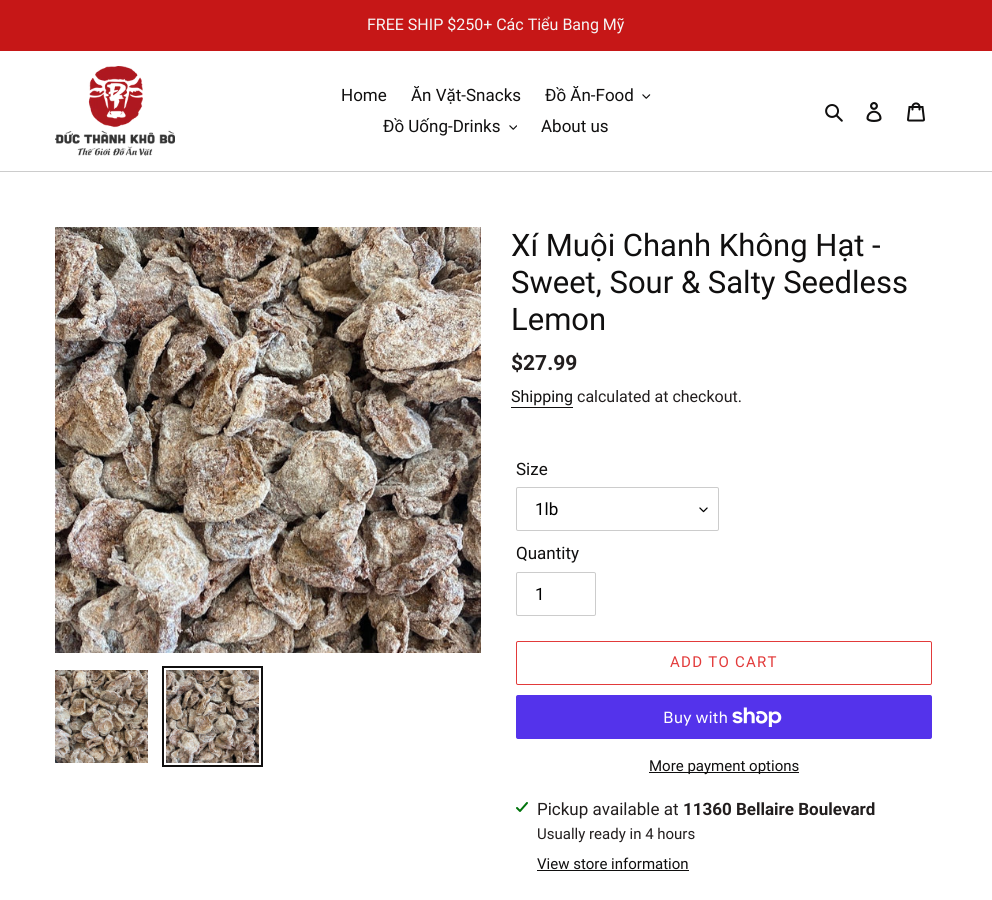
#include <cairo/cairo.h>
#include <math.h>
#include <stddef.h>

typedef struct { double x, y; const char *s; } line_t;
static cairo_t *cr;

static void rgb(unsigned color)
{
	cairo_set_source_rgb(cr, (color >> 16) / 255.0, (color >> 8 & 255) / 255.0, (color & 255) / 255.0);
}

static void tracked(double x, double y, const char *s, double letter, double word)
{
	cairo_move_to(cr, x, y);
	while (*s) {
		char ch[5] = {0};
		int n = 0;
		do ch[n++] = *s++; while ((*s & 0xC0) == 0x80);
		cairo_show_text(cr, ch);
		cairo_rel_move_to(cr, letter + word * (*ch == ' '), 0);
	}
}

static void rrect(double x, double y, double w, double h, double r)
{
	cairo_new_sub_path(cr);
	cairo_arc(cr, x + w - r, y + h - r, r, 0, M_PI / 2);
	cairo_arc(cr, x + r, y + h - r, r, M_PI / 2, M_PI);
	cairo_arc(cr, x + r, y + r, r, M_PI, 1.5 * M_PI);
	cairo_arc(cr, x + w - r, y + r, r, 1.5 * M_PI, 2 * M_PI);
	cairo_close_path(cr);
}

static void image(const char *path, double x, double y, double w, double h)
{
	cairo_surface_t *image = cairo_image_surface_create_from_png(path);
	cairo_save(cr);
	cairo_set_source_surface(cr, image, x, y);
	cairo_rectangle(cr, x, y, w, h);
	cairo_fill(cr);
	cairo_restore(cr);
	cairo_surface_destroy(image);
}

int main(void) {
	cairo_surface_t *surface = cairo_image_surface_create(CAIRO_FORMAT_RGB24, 992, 900);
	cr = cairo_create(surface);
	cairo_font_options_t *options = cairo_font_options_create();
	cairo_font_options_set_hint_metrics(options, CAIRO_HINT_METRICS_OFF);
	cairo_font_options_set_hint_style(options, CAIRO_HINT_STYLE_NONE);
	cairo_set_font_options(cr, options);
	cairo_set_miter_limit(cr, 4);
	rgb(0xffffff);
	cairo_paint(cr);
	rgb(0xc61717);
	cairo_rectangle(cr, 0, 0, 992, 51);
	cairo_fill(cr);
	rgb(0xcccccc);
	cairo_rectangle(cr, 0, 171, 992, 1);
	cairo_fill(cr);
	image("img/1.png", 55, 66, 120, 90);
	image("img/2.png", 642, 94, 9, 5);
	image("img/3.png", 509, 125, 8, 5);
	image("img/4.png", 825, 104, 18, 18);
	image("img/5.png", 866, 102, 16, 20);
	image("img/6.png", 907, 102, 18, 20);
	image("img/7.png", 55, 227, 426, 426);
	image("img/8.png", 55, 670, 93, 93);
	cairo_rectangle(cr, 163, 667, 99, 99);
	rgb(0x100f0f);
	cairo_stroke(cr);
	image("img/9.png", 166, 670, 93, 93);
	cairo_rectangle(cr, 511, 407, 62, 1);
	cairo_fill(cr);
	image("img/10.png", 699, 507, 9, 6);
	rrect(516.5, 487.5, 202, 43, 1.5);
	rgb(0xcccccc);
	cairo_set_line_width(cr, 1);
	cairo_stroke(cr);
	rrect(516.5, 572.5, 79, 43, 1.5);
	cairo_stroke(cr);
	rrect(516.5, 641.5, 415, 43, 1.5);
	rgb(0xe23a3a);
	cairo_stroke(cr);
	rgb(0x5433eb);
	rrect(516, 695, 416, 44, 2);
	cairo_fill(cr);
	image("img/11.png", 732, 707, 50, 20);
	rgb(0x100f0f);
	cairo_rectangle(cr, 649, 772, 150, 1);
	cairo_fill(cr);
	image("img/12.png", 516, 802, 12, 10);
	cairo_rectangle(cr, 537, 870, 152, 1);
	cairo_fill(cr);
	cairo_select_font_face(cr, "Roboto", CAIRO_FONT_SLANT_NORMAL, CAIRO_FONT_WEIGHT_NORMAL);
	cairo_set_font_size(cr, 16);
	rgb(0xf5f5f5);
	cairo_move_to(cr, 367, 30);
	cairo_show_text(cr, "FREE SHIP $250+ Các Tiểu Bang Mỹ");
	cairo_set_font_size(cr, 17);
	rgb(0x100f0f);
	{
		static const line_t items[] = {
			{341, 101, "Home"},
			{411, 101, "Ăn Vặt-Snacks"},
			{545, 101, "Đồ Ăn-Food"},
			{383, 132, "Đồ Uống-Drinks"},
			{541, 132, "About us"},
		};
		for (size_t i = 0; i < sizeof items / sizeof *items; i++) {
			cairo_move_to(cr, items[i].x, items[i].y);
			cairo_show_text(cr, items[i].s);
		}
	}
	cairo_set_font_size(cr, 31);
	{
		static const line_t items[] = {
			{511, 256, "Xí Muội Chanh Không Hạt -"},
			{511, 293, "Sweet, Sour & Salty Seedless"},
			{511, 330, "Lemon"},
		};
		for (size_t i = 0; i < sizeof items / sizeof *items; i++) {
			cairo_move_to(cr, items[i].x, items[i].y);
			cairo_show_text(cr, items[i].s);
		}
	}
	cairo_select_font_face(cr, "Roboto", CAIRO_FONT_SLANT_NORMAL, CAIRO_FONT_WEIGHT_BOLD);
	cairo_set_font_size(cr, 21);
	rgb(0x221e1e);
	cairo_move_to(cr, 511, 370);
	cairo_show_text(cr, "$27.99");
	cairo_select_font_face(cr, "Roboto", CAIRO_FONT_SLANT_NORMAL, CAIRO_FONT_WEIGHT_NORMAL);
	cairo_set_font_size(cr, 16);
	rgb(0x100f0f);
	cairo_move_to(cr, 511, 402);
	cairo_show_text(cr, "Shipping");
	rgb(0x221e1e);
	cairo_move_to(cr, 577, 402);
	cairo_show_text(cr, "calculated at checkout.");
	cairo_set_font_size(cr, 17);
	rgb(0x100f0f);
	cairo_move_to(cr, 516, 475);
	cairo_show_text(cr, "Size");
	rgb(0x000000);
	cairo_move_to(cr, 535, 515);
	cairo_show_text(cr, "1lb");
	rgb(0x100f0f);
	cairo_move_to(cr, 516, 559);
	cairo_show_text(cr, "Quantity");
	rgb(0x000000);
	cairo_move_to(cr, 535, 600);
	cairo_show_text(cr, "1");
	cairo_set_font_size(cr, 15);
	rgb(0xe23a3a);
	tracked(670, 667, "ADD TO CART", 1.25, 0);
	cairo_select_font_face(cr, "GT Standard", CAIRO_FONT_SLANT_NORMAL, CAIRO_FONT_WEIGHT_NORMAL);
	cairo_set_font_size(cr, 16);
	rgb(0xffffff);
	cairo_move_to(cr, 663, 723);
	cairo_show_text(cr, "Buy with");
	cairo_select_font_face(cr, "Roboto", CAIRO_FONT_SLANT_NORMAL, CAIRO_FONT_WEIGHT_NORMAL);
	cairo_set_font_size(cr, 15);
	rgb(0x100f0f);
	cairo_move_to(cr, 649, 771);
	cairo_show_text(cr, "More payment options");
	cairo_set_font_size(cr, 17);
	rgb(0x221e1e);
	cairo_move_to(cr, 537, 815);
	cairo_show_text(cr, "Pickup available at");
	cairo_select_font_face(cr, "Roboto", CAIRO_FONT_SLANT_NORMAL, CAIRO_FONT_WEIGHT_BOLD);
	cairo_move_to(cr, 683, 815);
	cairo_show_text(cr, "11360 Bellaire Boulevard");
	cairo_select_font_face(cr, "Roboto", CAIRO_FONT_SLANT_NORMAL, CAIRO_FONT_WEIGHT_NORMAL);
	cairo_set_font_size(cr, 15);
	cairo_move_to(cr, 537, 839);
	cairo_show_text(cr, "Usually ready in 4 hours");
	rgb(0x100f0f);
	cairo_move_to(cr, 537, 869);
	cairo_show_text(cr, "View store information");
	cairo_surface_write_to_png(surface, "page.png");
	cairo_font_options_destroy(options);
	cairo_destroy(cr);
	cairo_surface_destroy(surface);
	return 0;
}
